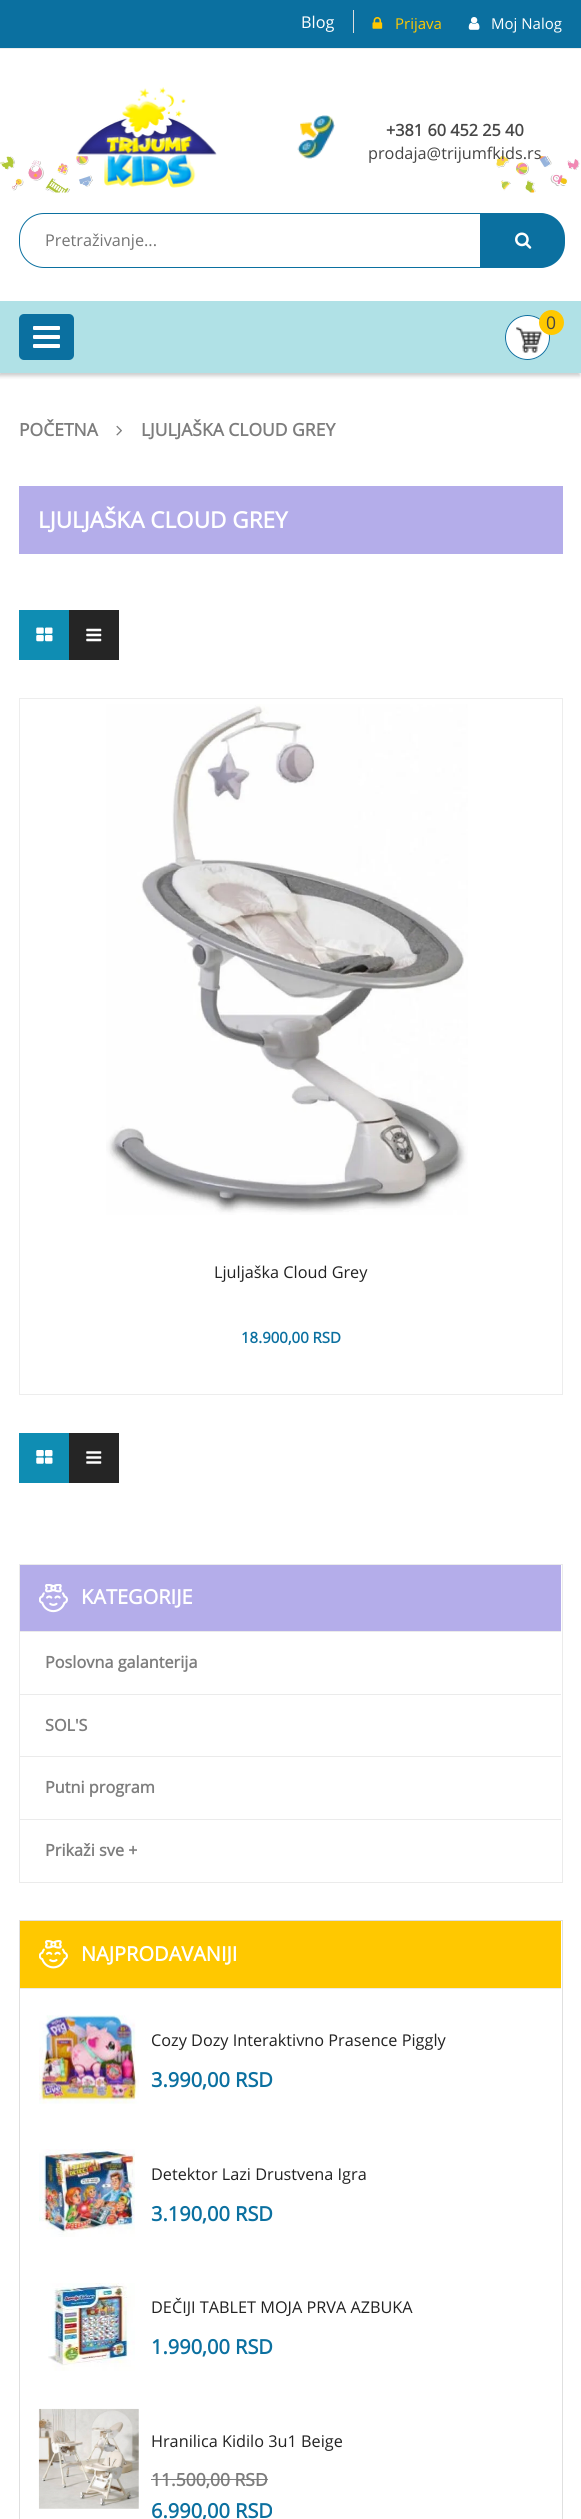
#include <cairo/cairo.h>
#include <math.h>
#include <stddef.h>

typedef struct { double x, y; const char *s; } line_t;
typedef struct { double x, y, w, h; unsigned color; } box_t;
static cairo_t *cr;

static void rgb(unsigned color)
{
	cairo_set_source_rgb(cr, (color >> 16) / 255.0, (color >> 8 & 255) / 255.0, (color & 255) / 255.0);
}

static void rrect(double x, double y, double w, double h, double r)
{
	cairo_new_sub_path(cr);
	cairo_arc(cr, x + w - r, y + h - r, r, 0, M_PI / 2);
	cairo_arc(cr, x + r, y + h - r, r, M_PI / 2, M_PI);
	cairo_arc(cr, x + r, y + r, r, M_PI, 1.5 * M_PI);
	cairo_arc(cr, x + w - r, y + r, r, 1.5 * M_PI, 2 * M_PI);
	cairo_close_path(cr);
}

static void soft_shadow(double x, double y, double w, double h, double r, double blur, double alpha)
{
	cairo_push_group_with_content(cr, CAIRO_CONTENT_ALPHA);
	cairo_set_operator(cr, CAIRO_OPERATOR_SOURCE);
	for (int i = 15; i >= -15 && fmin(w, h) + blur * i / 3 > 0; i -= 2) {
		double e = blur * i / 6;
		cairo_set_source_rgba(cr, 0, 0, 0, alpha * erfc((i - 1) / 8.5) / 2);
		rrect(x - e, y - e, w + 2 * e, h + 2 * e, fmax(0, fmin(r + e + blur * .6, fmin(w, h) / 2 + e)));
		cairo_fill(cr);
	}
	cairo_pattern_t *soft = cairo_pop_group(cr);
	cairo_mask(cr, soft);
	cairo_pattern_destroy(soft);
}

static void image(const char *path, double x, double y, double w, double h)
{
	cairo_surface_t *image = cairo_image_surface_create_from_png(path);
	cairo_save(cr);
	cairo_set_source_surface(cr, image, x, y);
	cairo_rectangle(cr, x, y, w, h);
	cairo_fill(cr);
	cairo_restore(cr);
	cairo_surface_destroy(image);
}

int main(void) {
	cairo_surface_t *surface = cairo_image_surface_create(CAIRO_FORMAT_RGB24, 581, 2519);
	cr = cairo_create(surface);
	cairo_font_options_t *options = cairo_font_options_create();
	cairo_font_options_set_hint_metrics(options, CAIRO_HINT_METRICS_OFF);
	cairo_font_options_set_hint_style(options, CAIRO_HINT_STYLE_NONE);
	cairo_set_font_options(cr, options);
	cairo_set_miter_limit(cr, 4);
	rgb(0xffffff);
	cairo_paint(cr);
	{
		static const box_t items[] = {
			{0, 0, 581, 48, 0x0b70a0},
			{0, 48, 581, 1, 0xededed},
			{353, 10, 1, 23, 0xdddddd},
		};
		for (size_t i = 0; i < sizeof items / sizeof *items; i++) {
			rgb(items[i].color);
			cairo_rectangle(cr, items[i].x, items[i].y, items[i].w, items[i].h);
			cairo_fill(cr);
		}
	}
	image("img/1.png", 372, 17, 11, 12);
	image("img/2.png", 468, 17, 12, 13);
	image("img/3.png", 0, 156, 580, 37);
	image("img/4.png", 77, 87, 140, 101);
	image("img/5.png", 297, 115, 38, 44);
	rgb(0x000000);
	soft_shadow(-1, 305, 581, 71, 0, 2, 0.2);
	rgb(0xb0e1e6);
	cairo_rectangle(cr, 0, 301, 581, 72);
	cairo_fill(cr);
	rrect(19.5, 213.5, 543, 54, 24.5);
	rgb(0x0b70a0);
	cairo_set_line_width(cr, 1);
	cairo_stroke(cr);
	cairo_new_path(cr);
	cairo_move_to(cr, 480, 213);
	cairo_line_to(cr, 540, 213);
	cairo_curve_to(cr, 554, 213, 565, 224, 565, 238);
	cairo_line_to(cr, 565, 243);
	cairo_curve_to(cr, 565, 257, 554, 268, 540, 268);
	cairo_line_to(cr, 480, 268);
	cairo_close_path(cr);
	cairo_fill(cr);
	image("img/6.png", 515, 232, 17, 17);
	rrect(19, 314, 55, 46, 5);
	cairo_fill(cr);
	rgb(0xffffff);
	rrect(33, 326, 27, 4, 1);
	cairo_fill(cr);
	rrect(33, 335, 27, 4, 1);
	cairo_fill(cr);
	rrect(33, 344, 27, 4, 1);
	cairo_fill(cr);
	cairo_arc(cr, 527.5, 337.5, 22.5, 0, 2 * M_PI);
	cairo_fill(cr);
	image("img/7.png", 516, 327, 26, 26);
	cairo_arc(cr, 527.5, 337.5, 22, 0, 2 * M_PI);
	rgb(0x0b70a0);
	cairo_stroke(cr);
	rgb(0xffc800);
	cairo_arc(cr, 551.5, 322.5, 12.5, 0, 2 * M_PI);
	cairo_fill(cr);
	image("img/8.png", 116, 425, 6, 11);
	rgb(0xb4adea);
	cairo_rectangle(cr, 19, 486, 544, 68);
	cairo_fill(cr);
	rgb(0x0f8db3);
	cairo_rectangle(cr, 19, 610, 50, 50);
	cairo_fill(cr);
	image("img/9.png", 36, 627, 17, 15);
	rgb(0x252525);
	cairo_rectangle(cr, 69, 610, 50, 50);
	cairo_fill(cr);
	image("img/10.png", 86, 628, 16, 14);
	cairo_rectangle(cr, 19.5, 698.5, 543, 696);
	rgb(0xededed);
	cairo_stroke(cr);
	image("img/11.png", 106, 704, 362, 511);
	rgb(0x0f8db3);
	cairo_rectangle(cr, 19, 1433, 50, 50);
	cairo_fill(cr);
	image("img/12.png", 36, 1450, 17, 14);
	rgb(0x252525);
	cairo_rectangle(cr, 69, 1433, 50, 50);
	cairo_fill(cr);
	image("img/13.png", 86, 1451, 16, 13);
	cairo_rectangle(cr, 19.5, 1564.5, 543, 318);
	rgb(0xebebeb);
	cairo_stroke(cr);
	rgb(0xb4adea);
	cairo_rectangle(cr, 20, 1565, 541, 66);
	cairo_fill(cr);
	image("img/14.png", 39, 1584, 29, 29);
	{
		static const box_t items[] = {
			{20, 1631, 541, 1, 0xebebeb},
			{20, 1694, 541, 1, 0xebebeb},
			{20, 1756, 541, 1, 0xebebeb},
			{20, 1819, 541, 1, 0xebebeb},
		};
		for (size_t i = 0; i < sizeof items / sizeof *items; i++) {
			rgb(items[i].color);
			cairo_rectangle(cr, items[i].x, items[i].y, items[i].w, items[i].h);
			cairo_fill(cr);
		}
	}
	cairo_rectangle(cr, 19.5, 1920.5, 543, 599);
	rgb(0xe0e0e0);
	cairo_stroke(cr);
	rgb(0xffc800);
	cairo_rectangle(cr, 20, 1921, 541, 67);
	cairo_fill(cr);
	image("img/15.png", 39, 1940, 29, 29);
	rgb(0xebebeb);
	cairo_rectangle(cr, 20, 1988, 541, 1);
	cairo_fill(cr);
	image("img/16.png", 39, 2015, 100, 89);
	image("img/17.png", 39, 2149, 96, 88);
	image("img/18.png", 48, 2283, 87, 88);
	image("img/19.png", 38, 2408, 101, 101);
	rgb(0x7d7d7d);
	cairo_rectangle(cr, 151, 2479, 117, 1);
	cairo_fill(cr);
	cairo_select_font_face(cr, "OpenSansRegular", CAIRO_FONT_SLANT_NORMAL, CAIRO_FONT_WEIGHT_NORMAL);
	cairo_set_font_size(cr, 16.25);
	rgb(0xffffff);
	cairo_move_to(cr, 301, 28);
	cairo_show_text(cr, "Blog");
	cairo_set_font_size(cr, 15);
	rgb(0xffc800);
	cairo_move_to(cr, 395, 29);
	cairo_show_text(cr, "Prijava");
	rgb(0xffffff);
	cairo_move_to(cr, 491, 29);
	cairo_show_text(cr, "Moj Nalog");
	cairo_select_font_face(cr, "OpenSansRegular", CAIRO_FONT_SLANT_NORMAL, CAIRO_FONT_WEIGHT_BOLD);
	cairo_set_font_size(cr, 16.25);
	rgb(0x464646);
	cairo_move_to(cr, 386, 136);
	cairo_show_text(cr, "+381 60 452 25 40");
	cairo_select_font_face(cr, "OpenSansRegular", CAIRO_FONT_SLANT_NORMAL, CAIRO_FONT_WEIGHT_NORMAL);
	cairo_move_to(cr, 368, 159);
	cairo_show_text(cr, "prodaja@trijumfkids.rs");
	rgb(0x757575);
	cairo_move_to(cr, 45, 246);
	cairo_show_text(cr, "Pretraživanje...");
	cairo_set_font_size(cr, 17.5);
	rgb(0x464646);
	cairo_move_to(cr, 546, 329);
	cairo_show_text(cr, "0");
	cairo_select_font_face(cr, "OpenSansRegular", CAIRO_FONT_SLANT_NORMAL, CAIRO_FONT_WEIGHT_BOLD);
	rgb(0x7d7d7d);
	cairo_move_to(cr, 19, 436);
	cairo_show_text(cr, "POČETNA");
	cairo_move_to(cr, 141, 436);
	cairo_show_text(cr, "LJULJAŠKA CLOUD GREY");
	cairo_set_font_size(cr, 22.5);
	rgb(0xffffff);
	cairo_move_to(cr, 38, 528);
	cairo_show_text(cr, "LJULJAŠKA CLOUD GREY");
	cairo_select_font_face(cr, "OpenSansRegular", CAIRO_FONT_SLANT_NORMAL, CAIRO_FONT_WEIGHT_NORMAL);
	cairo_set_font_size(cr, 16.25);
	rgb(0x222222);
	cairo_move_to(cr, 214, 1278);
	cairo_show_text(cr, "Ljuljaška Cloud Grey");
	cairo_select_font_face(cr, "OpenSansRegular", CAIRO_FONT_SLANT_NORMAL, CAIRO_FONT_WEIGHT_BOLD);
	cairo_set_font_size(cr, 15);
	rgb(0x0b70a0);
	cairo_move_to(cr, 241, 1343);
	cairo_show_text(cr, "18.900,00 RSD");
	cairo_set_font_size(cr, 20);
	rgb(0xffffff);
	cairo_move_to(cr, 81, 1604);
	cairo_show_text(cr, "KATEGORIJE");
	cairo_set_font_size(cr, 16.25);
	rgb(0x7d7d7d);
	{
		static const line_t items[] = {
			{45, 1668, "Poslovna galanterija"},
			{45, 1731, "SOL'S"},
			{45, 1793, "Putni program"},
			{45, 1856, "Prikaži sve +"},
		};
		for (size_t i = 0; i < sizeof items / sizeof *items; i++) {
			cairo_move_to(cr, items[i].x, items[i].y);
			cairo_show_text(cr, items[i].s);
		}
	}
	cairo_set_font_size(cr, 20);
	rgb(0xffffff);
	cairo_move_to(cr, 81, 1961);
	cairo_show_text(cr, "NAJPRODAVANIJI");
	cairo_select_font_face(cr, "OpenSansRegular", CAIRO_FONT_SLANT_NORMAL, CAIRO_FONT_WEIGHT_NORMAL);
	cairo_set_font_size(cr, 16.25);
	rgb(0x222222);
	cairo_move_to(cr, 151, 2046);
	cairo_show_text(cr, "Cozy Dozy Interaktivno Prasence Piggly");
	cairo_select_font_face(cr, "OpenSansRegular", CAIRO_FONT_SLANT_NORMAL, CAIRO_FONT_WEIGHT_BOLD);
	cairo_set_font_size(cr, 20);
	rgb(0x0b70a0);
	cairo_move_to(cr, 151, 2087);
	cairo_show_text(cr, "3.990,00 RSD");
	cairo_select_font_face(cr, "OpenSansRegular", CAIRO_FONT_SLANT_NORMAL, CAIRO_FONT_WEIGHT_NORMAL);
	cairo_set_font_size(cr, 16.25);
	rgb(0x222222);
	cairo_move_to(cr, 151, 2180);
	cairo_show_text(cr, "Detektor Lazi Drustvena Igra");
	cairo_select_font_face(cr, "OpenSansRegular", CAIRO_FONT_SLANT_NORMAL, CAIRO_FONT_WEIGHT_BOLD);
	cairo_set_font_size(cr, 20);
	rgb(0x0b70a0);
	cairo_move_to(cr, 151, 2221);
	cairo_show_text(cr, "3.190,00 RSD");
	cairo_select_font_face(cr, "OpenSansRegular", CAIRO_FONT_SLANT_NORMAL, CAIRO_FONT_WEIGHT_NORMAL);
	cairo_set_font_size(cr, 16.25);
	rgb(0x222222);
	cairo_move_to(cr, 151, 2313);
	cairo_show_text(cr, "DEČIJI TABLET MOJA PRVA AZBUKA");
	cairo_select_font_face(cr, "OpenSansRegular", CAIRO_FONT_SLANT_NORMAL, CAIRO_FONT_WEIGHT_BOLD);
	cairo_set_font_size(cr, 20);
	rgb(0x0b70a0);
	cairo_move_to(cr, 151, 2354);
	cairo_show_text(cr, "1.990,00 RSD");
	cairo_select_font_face(cr, "OpenSansRegular", CAIRO_FONT_SLANT_NORMAL, CAIRO_FONT_WEIGHT_NORMAL);
	cairo_set_font_size(cr, 16.25);
	rgb(0x222222);
	cairo_move_to(cr, 151, 2447);
	cairo_show_text(cr, "Hranilica Kidilo 3u1 Beige");
	cairo_select_font_face(cr, "OpenSansRegular", CAIRO_FONT_SLANT_NORMAL, CAIRO_FONT_WEIGHT_BOLD);
	cairo_set_font_size(cr, 17.5);
	rgb(0x7d7d7d);
	cairo_move_to(cr, 151, 2486);
	cairo_show_text(cr, "11.500,00 RSD");
	cairo_set_font_size(cr, 20);
	rgb(0x0b70a0);
	cairo_move_to(cr, 151, 2518);
	cairo_show_text(cr, "6.990,00 RSD");
	cairo_surface_write_to_png(surface, "page.png");
	cairo_font_options_destroy(options);
	cairo_destroy(cr);
	cairo_surface_destroy(surface);
	return 0;
}
